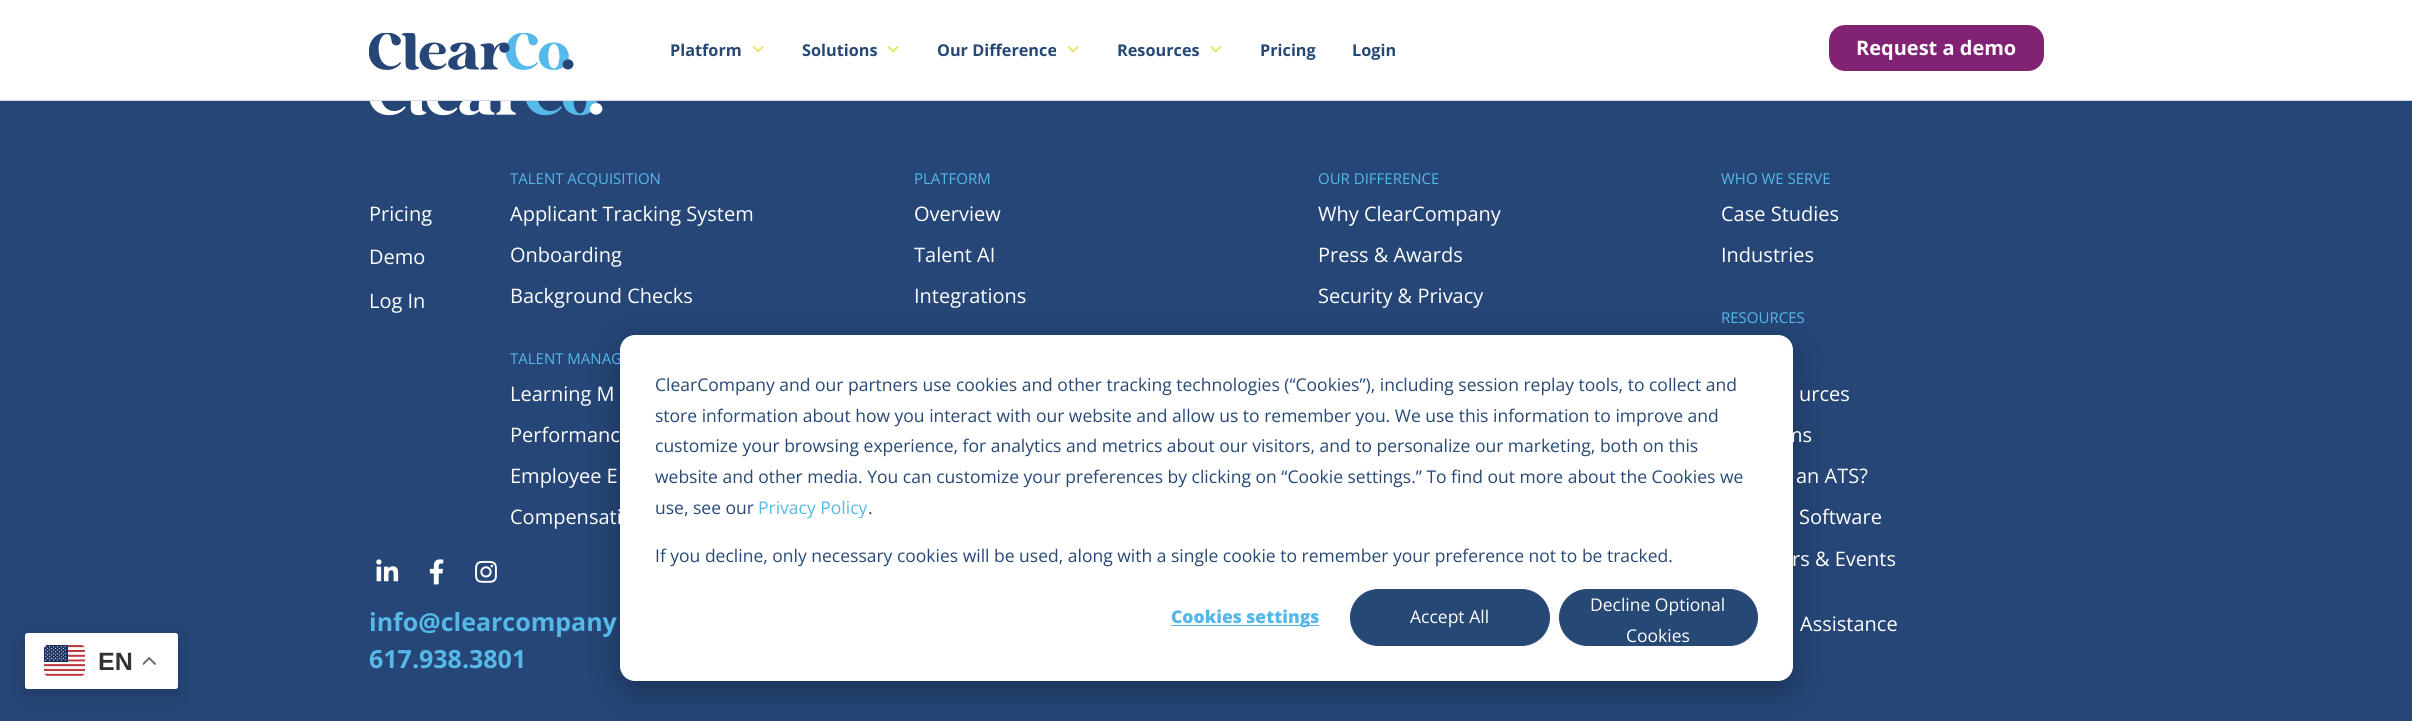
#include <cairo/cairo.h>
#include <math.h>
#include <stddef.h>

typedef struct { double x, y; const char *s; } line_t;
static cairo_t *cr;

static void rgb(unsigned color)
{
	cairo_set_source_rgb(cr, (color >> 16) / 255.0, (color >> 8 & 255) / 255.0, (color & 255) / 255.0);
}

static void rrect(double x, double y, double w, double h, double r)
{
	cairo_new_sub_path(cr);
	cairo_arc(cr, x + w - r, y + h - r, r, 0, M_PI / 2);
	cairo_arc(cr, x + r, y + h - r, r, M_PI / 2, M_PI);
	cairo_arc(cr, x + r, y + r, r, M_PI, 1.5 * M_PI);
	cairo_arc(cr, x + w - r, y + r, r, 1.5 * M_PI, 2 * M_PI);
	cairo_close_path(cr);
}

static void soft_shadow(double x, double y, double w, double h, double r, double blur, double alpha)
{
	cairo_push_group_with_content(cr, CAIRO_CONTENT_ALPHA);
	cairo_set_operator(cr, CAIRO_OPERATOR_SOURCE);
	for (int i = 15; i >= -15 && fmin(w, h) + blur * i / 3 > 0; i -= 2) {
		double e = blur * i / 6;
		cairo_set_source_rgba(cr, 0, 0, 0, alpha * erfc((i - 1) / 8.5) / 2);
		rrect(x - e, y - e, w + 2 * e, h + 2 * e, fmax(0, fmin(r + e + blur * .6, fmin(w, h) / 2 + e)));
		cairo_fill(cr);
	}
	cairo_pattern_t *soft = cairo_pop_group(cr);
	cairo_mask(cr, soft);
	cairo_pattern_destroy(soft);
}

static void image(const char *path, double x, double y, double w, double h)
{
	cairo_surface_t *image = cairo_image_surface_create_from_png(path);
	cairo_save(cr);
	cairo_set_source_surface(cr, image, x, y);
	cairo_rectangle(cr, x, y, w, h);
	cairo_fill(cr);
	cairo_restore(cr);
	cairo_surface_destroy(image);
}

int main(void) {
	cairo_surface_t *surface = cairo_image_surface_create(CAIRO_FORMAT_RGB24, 2412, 721);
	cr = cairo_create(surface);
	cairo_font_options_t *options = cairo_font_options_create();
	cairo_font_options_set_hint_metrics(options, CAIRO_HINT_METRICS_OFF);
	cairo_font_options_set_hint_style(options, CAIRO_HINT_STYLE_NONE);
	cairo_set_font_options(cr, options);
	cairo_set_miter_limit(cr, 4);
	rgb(0x254677);
	cairo_paint(cr);
	rgb(0xffffff);
	cairo_rectangle(cr, 0, 0, 2412, 100);
	cairo_fill(cr);
	rgb(0xd3dae4);
	cairo_rectangle(cr, 0, 100, 2412, 1);
	cairo_fill(cr);
	image("img/1.png", 369, 33, 205, 37);
	image("img/2.png", 752, 46, 12, 7);
	image("img/2.png", 887, 46, 12, 7);
	image("img/2.png", 1067, 46, 12, 7);
	image("img/3.png", 1210, 46, 12, 7);
	rgb(0x822275);
	rrect(1830.5, 26.5, 212, 43, 14.5);
	cairo_fill_preserve(cr);
	cairo_set_line_width(cr, 3);
	cairo_stroke(cr);
	image("img/4.png", 369, 101, 234, 15);
	image("img/5.png", 376, 559, 23, 23);
	image("img/6.png", 429, 559, 15, 26);
	image("img/7.png", 475, 560, 22, 23);
	rgb(0x000000);
	soft_shadow(620, 345, 1173, 346, 15, 17.5, 0.28);
	soft_shadow(25, 639, 153, 56, 2.5, 9.5, 0.15);
	rgb(0xffffff);
	rrect(25, 633, 153, 56, 2.5);
	cairo_fill(cr);
	image("img/8.png", 44, 645, 41, 31);
	image("img/9.png", 143, 657, 13, 8);
	cairo_select_font_face(cr, "Open Sans", CAIRO_FONT_SLANT_NORMAL, CAIRO_FONT_WEIGHT_BOLD);
	cairo_set_font_size(cr, 16.25);
	rgb(0x264875);
	{
		static const line_t items[] = {
			{670, 56, "Platform"},
			{802, 56, "Solutions"},
			{937, 56, "Our Difference"},
			{1117, 56, "Resources"},
			{1260, 56, "Pricing"},
			{1352, 56, "Login"},
		};
		for (size_t i = 0; i < sizeof items / sizeof *items; i++) {
			cairo_move_to(cr, items[i].x, items[i].y);
			cairo_show_text(cr, items[i].s);
		}
	}
	cairo_set_font_size(cr, 20);
	rgb(0xffffff);
	cairo_move_to(cr, 1856, 55);
	cairo_show_text(cr, "Request a demo");
	cairo_select_font_face(cr, "Open Sans", CAIRO_FONT_SLANT_NORMAL, CAIRO_FONT_WEIGHT_NORMAL);
	{
		static const line_t items[] = {
			{369, 221, "Pricing"},
			{369, 264, "Demo"},
			{369, 308, "Log In"},
		};
		for (size_t i = 0; i < sizeof items / sizeof *items; i++) {
			cairo_move_to(cr, items[i].x, items[i].y);
			cairo_show_text(cr, items[i].s);
		}
	}
	cairo_set_font_size(cr, 15);
	rgb(0x55b8e8);
	cairo_move_to(cr, 510, 184);
	cairo_show_text(cr, "TALENT ACQUISITION");
	cairo_set_font_size(cr, 20);
	rgb(0xffffff);
	{
		static const line_t items[] = {
			{510, 221, "Applicant Tracking System"},
			{510, 262, "Onboarding"},
			{510, 303, "Background Checks"},
		};
		for (size_t i = 0; i < sizeof items / sizeof *items; i++) {
			cairo_move_to(cr, items[i].x, items[i].y);
			cairo_show_text(cr, items[i].s);
		}
	}
	cairo_set_font_size(cr, 15);
	rgb(0x55b8e8);
	cairo_move_to(cr, 510, 364);
	cairo_show_text(cr, "TALENT MANAG");
	cairo_set_font_size(cr, 20);
	rgb(0xffffff);
	{
		static const line_t items[] = {
			{510, 401, "Learning M"},
			{510, 442, "Performanc"},
			{510, 483, "Employee E"},
			{510, 524, "Compensati"},
		};
		for (size_t i = 0; i < sizeof items / sizeof *items; i++) {
			cairo_move_to(cr, items[i].x, items[i].y);
			cairo_show_text(cr, items[i].s);
		}
	}
	cairo_set_font_size(cr, 15);
	rgb(0x55b8e8);
	cairo_move_to(cr, 914, 184);
	cairo_show_text(cr, "PLATFORM");
	cairo_set_font_size(cr, 20);
	rgb(0xffffff);
	{
		static const line_t items[] = {
			{914, 221, "Overview"},
			{914, 262, "Talent AI"},
			{914, 303, "Integrations"},
		};
		for (size_t i = 0; i < sizeof items / sizeof *items; i++) {
			cairo_move_to(cr, items[i].x, items[i].y);
			cairo_show_text(cr, items[i].s);
		}
	}
	cairo_set_font_size(cr, 15);
	rgb(0x55b8e8);
	cairo_move_to(cr, 1318, 184);
	cairo_show_text(cr, "OUR DIFFERENCE");
	cairo_set_font_size(cr, 20);
	rgb(0xffffff);
	{
		static const line_t items[] = {
			{1318, 221, "Why ClearCompany"},
			{1318, 262, "Press & Awards"},
			{1318, 303, "Security & Privacy"},
		};
		for (size_t i = 0; i < sizeof items / sizeof *items; i++) {
			cairo_move_to(cr, items[i].x, items[i].y);
			cairo_show_text(cr, items[i].s);
		}
	}
	cairo_set_font_size(cr, 15);
	rgb(0x55b8e8);
	cairo_move_to(cr, 1721, 184);
	cairo_show_text(cr, "WHO WE SERVE");
	cairo_set_font_size(cr, 20);
	rgb(0xffffff);
	cairo_move_to(cr, 1721, 221);
	cairo_show_text(cr, "Case Studies");
	cairo_move_to(cr, 1721, 262);
	cairo_show_text(cr, "Industries");
	cairo_set_font_size(cr, 15);
	rgb(0x55b8e8);
	cairo_move_to(cr, 1721, 323);
	cairo_show_text(cr, "RESOURCES");
	cairo_set_font_size(cr, 20);
	rgb(0xffffff);
	{
		static const line_t items[] = {
			{1799, 401, "urces"},
			{1784, 442, "ms"},
			{1796, 483, "an ATS?"},
			{1799, 524, "Software"},
			{1792, 566, "rs & Events"},
		};
		for (size_t i = 0; i < sizeof items / sizeof *items; i++) {
			cairo_move_to(cr, items[i].x, items[i].y);
			cairo_show_text(cr, items[i].s);
		}
	}
	cairo_select_font_face(cr, "Open Sans", CAIRO_FONT_SLANT_NORMAL, CAIRO_FONT_WEIGHT_BOLD);
	cairo_set_font_size(cr, 25);
	rgb(0x55b8e8);
	cairo_move_to(cr, 369, 631);
	cairo_show_text(cr, "info@clearcompany");
	cairo_move_to(cr, 369, 668);
	cairo_show_text(cr, "617.938.3801");
	cairo_select_font_face(cr, "Open Sans", CAIRO_FONT_SLANT_NORMAL, CAIRO_FONT_WEIGHT_NORMAL);
	cairo_set_font_size(cr, 20);
	rgb(0xffffff);
	cairo_move_to(cr, 1800, 631);
	cairo_show_text(cr, "Assistance");
	rrect(620, 335, 1173, 346, 15);
	cairo_fill(cr);
	cairo_set_font_size(cr, 17.5);
	rgb(0x264875);
	{
		static const line_t items[] = {
			{655, 391, "ClearCompany and our partners use cookies and other tracking technologies (“Cookies”), including session replay tools, to collect and"},
			{655, 422, "store information about how you interact with our website and allow us to remember you. We use this information to improve and"},
			{655, 452, "customize your browsing experience, for analytics and metrics about our visitors, and to personalize our marketing, both on this"},
			{655, 483, "website and other media. You can customize your preferences by clicking on “Cookie settings.” To find out more about the Cookies we"},
			{655, 514, "use, see our"},
		};
		for (size_t i = 0; i < sizeof items / sizeof *items; i++) {
			cairo_move_to(cr, items[i].x, items[i].y);
			cairo_show_text(cr, items[i].s);
		}
	}
	rgb(0x55b8e8);
	cairo_move_to(cr, 758, 514);
	cairo_show_text(cr, "Privacy Policy");
	rgb(0x264875);
	cairo_move_to(cr, 868, 514);
	cairo_show_text(cr, ".");
	cairo_move_to(cr, 655, 562);
	cairo_show_text(cr, "If you decline, only necessary cookies will be used, along with a single cookie to remember your preference not to be tracked.");
	rgb(0x55b8e8);
	cairo_rectangle(cr, 1171, 625, 148, 1);
	cairo_fill(cr);
	cairo_select_font_face(cr, "Open Sans ExtraBold", CAIRO_FONT_SLANT_NORMAL, CAIRO_FONT_WEIGHT_NORMAL);
	cairo_move_to(cr, 1171, 623);
	cairo_show_text(cr, "Cookies settings");
	rgb(0x264875);
	rrect(1350.5, 589.5, 199, 56, 28);
	cairo_fill_preserve(cr);
	cairo_set_line_width(cr, 1);
	cairo_stroke(cr);
	cairo_select_font_face(cr, "Open Sans", CAIRO_FONT_SLANT_NORMAL, CAIRO_FONT_WEIGHT_NORMAL);
	rgb(0xffffff);
	cairo_move_to(cr, 1410, 623);
	cairo_show_text(cr, "Accept All");
	rgb(0x264875);
	rrect(1559.5, 589.5, 198, 56, 28);
	cairo_fill_preserve(cr);
	cairo_stroke(cr);
	rgb(0xffffff);
	cairo_move_to(cr, 1590, 611);
	cairo_show_text(cr, "Decline Optional");
	cairo_move_to(cr, 1626, 642);
	cairo_show_text(cr, "Cookies");
	cairo_select_font_face(cr, "Liberation Sans", CAIRO_FONT_SLANT_NORMAL, CAIRO_FONT_WEIGHT_BOLD);
	cairo_set_font_size(cr, 25);
	rgb(0x333333);
	cairo_move_to(cr, 98, 670);
	cairo_show_text(cr, "EN");
	cairo_surface_write_to_png(surface, "page.png");
	cairo_font_options_destroy(options);
	cairo_destroy(cr);
	cairo_surface_destroy(surface);
	return 0;
}
